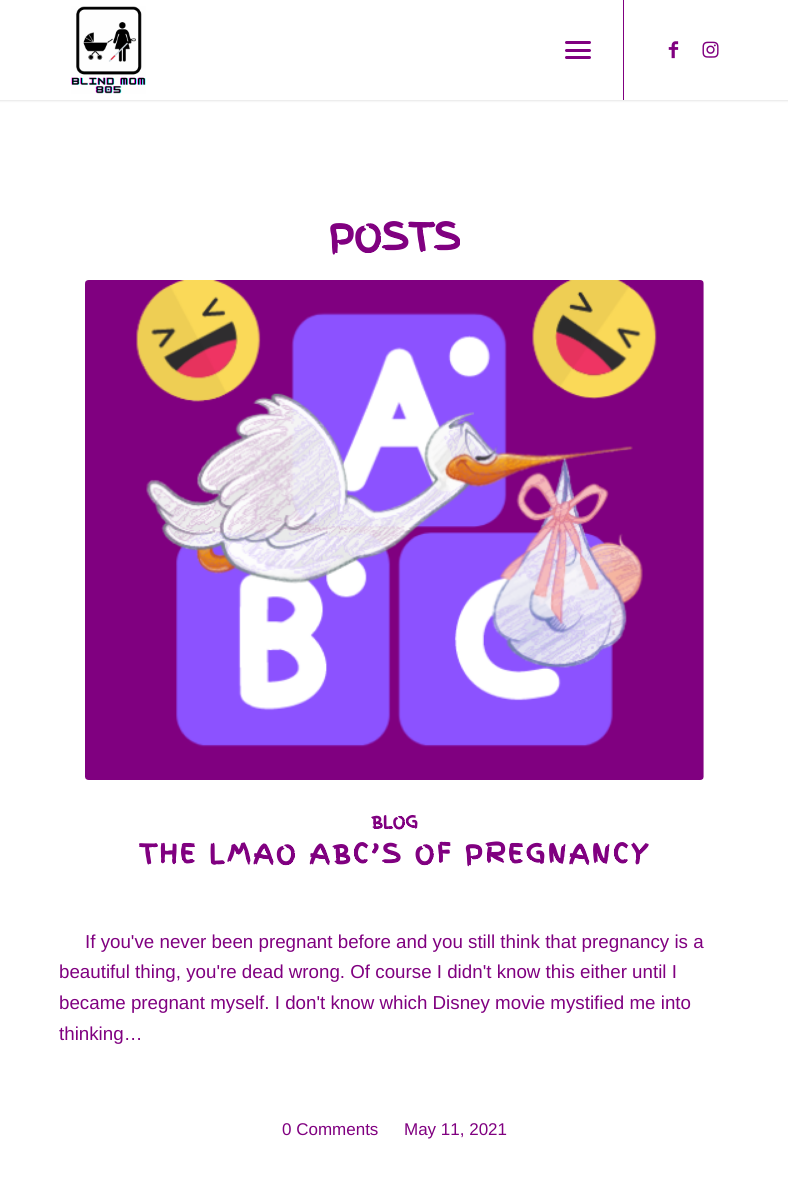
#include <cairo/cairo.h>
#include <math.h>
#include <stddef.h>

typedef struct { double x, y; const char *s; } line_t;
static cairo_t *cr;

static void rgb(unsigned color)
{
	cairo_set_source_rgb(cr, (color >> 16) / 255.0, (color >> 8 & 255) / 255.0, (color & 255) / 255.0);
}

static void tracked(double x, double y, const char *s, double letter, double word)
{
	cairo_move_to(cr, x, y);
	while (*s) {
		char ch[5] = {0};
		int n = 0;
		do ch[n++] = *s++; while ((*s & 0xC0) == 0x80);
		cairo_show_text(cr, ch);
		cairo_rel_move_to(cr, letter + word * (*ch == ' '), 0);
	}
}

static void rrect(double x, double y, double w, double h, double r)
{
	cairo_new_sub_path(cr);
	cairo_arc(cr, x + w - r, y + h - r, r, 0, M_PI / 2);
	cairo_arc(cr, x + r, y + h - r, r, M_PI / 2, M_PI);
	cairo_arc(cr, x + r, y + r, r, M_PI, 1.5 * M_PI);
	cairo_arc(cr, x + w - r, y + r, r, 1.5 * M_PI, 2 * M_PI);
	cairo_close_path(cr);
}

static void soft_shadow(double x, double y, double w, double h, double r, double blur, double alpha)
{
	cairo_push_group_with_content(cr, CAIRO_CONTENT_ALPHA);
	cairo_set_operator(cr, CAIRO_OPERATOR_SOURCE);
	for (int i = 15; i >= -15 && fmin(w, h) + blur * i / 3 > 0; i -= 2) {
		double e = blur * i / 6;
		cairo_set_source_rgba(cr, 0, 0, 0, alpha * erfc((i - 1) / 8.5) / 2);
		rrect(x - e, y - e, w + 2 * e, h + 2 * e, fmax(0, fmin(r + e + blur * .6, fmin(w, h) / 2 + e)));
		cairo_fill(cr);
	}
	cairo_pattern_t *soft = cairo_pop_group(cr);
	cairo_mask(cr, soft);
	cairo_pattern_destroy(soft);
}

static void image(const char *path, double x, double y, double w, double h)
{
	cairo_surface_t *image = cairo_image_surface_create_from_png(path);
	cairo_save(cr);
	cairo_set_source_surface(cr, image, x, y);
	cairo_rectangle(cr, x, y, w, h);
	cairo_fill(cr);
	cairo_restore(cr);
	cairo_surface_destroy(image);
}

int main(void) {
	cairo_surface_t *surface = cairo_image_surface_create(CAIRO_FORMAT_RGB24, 788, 1182);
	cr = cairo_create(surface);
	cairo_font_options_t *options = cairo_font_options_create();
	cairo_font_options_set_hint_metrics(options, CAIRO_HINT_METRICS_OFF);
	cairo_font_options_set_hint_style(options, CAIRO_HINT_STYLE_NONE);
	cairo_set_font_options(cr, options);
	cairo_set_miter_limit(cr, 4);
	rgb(0xffffff);
	cairo_paint(cr);
	rgb(0x000000);
	soft_shadow(-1, -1, 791, 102, 0, 1, 0.1);
	rgb(0xffffff);
	cairo_rectangle(cr, 0, 0, 788, 100);
	cairo_fill(cr);
	image("img/1.png", 71, 6, 75, 88);
	rgb(0x800080);
	cairo_rectangle(cr, 623, 0, 1, 100);
	cairo_fill(cr);
	rrect(565, 49, 26, 3, 1.5);
	cairo_fill(cr);
	rrect(565, 41, 26, 3, 1.5);
	cairo_fill(cr);
	rrect(565, 56, 26, 3, 1.5);
	cairo_fill(cr);
	image("img/2.png", 668, 41, 11, 18);
	image("img/3.png", 702, 41, 17, 17);
	image("img/4.png", 85, 280, 619, 500);
	cairo_select_font_face(cr, "Finger Paint", CAIRO_FONT_SLANT_NORMAL, CAIRO_FONT_WEIGHT_BOLD);
	cairo_set_font_size(cr, 37.5);
	cairo_move_to(cr, 328, 250);
	cairo_show_text(cr, "POSTS");
	cairo_set_font_size(cr, 17);
	cairo_move_to(cr, 371, 828);
	cairo_show_text(cr, "BLOG");
	cairo_set_font_size(cr, 26.25);
	tracked(139, 863, "THE LMAO ABC’S OF PREGNANCY", 2.5, 0);
	cairo_select_font_face(cr, "Liberation Sans", CAIRO_FONT_SLANT_NORMAL, CAIRO_FONT_WEIGHT_NORMAL);
	cairo_set_font_size(cr, 18.75);
	{
		static const line_t items[] = {
			{85, 948, "If you've never been pregnant before and you still think that pregnancy is a"},
			{59, 978, "beautiful thing, you're dead wrong. Of course I didn't know this either until I"},
			{59, 1009, "became pregnant myself. I don't know which Disney movie mystified me into"},
			{59, 1040, "thinking…"},
		};
		for (size_t i = 0; i < sizeof items / sizeof *items; i++) {
			cairo_move_to(cr, items[i].x, items[i].y);
			cairo_show_text(cr, items[i].s);
		}
	}
	cairo_set_font_size(cr, 17);
	cairo_move_to(cr, 282, 1135);
	cairo_show_text(cr, "0 Comments");
	cairo_move_to(cr, 404, 1135);
	cairo_show_text(cr, "May 11, 2021");
	cairo_surface_write_to_png(surface, "page.png");
	cairo_font_options_destroy(options);
	cairo_destroy(cr);
	cairo_surface_destroy(surface);
	return 0;
}
